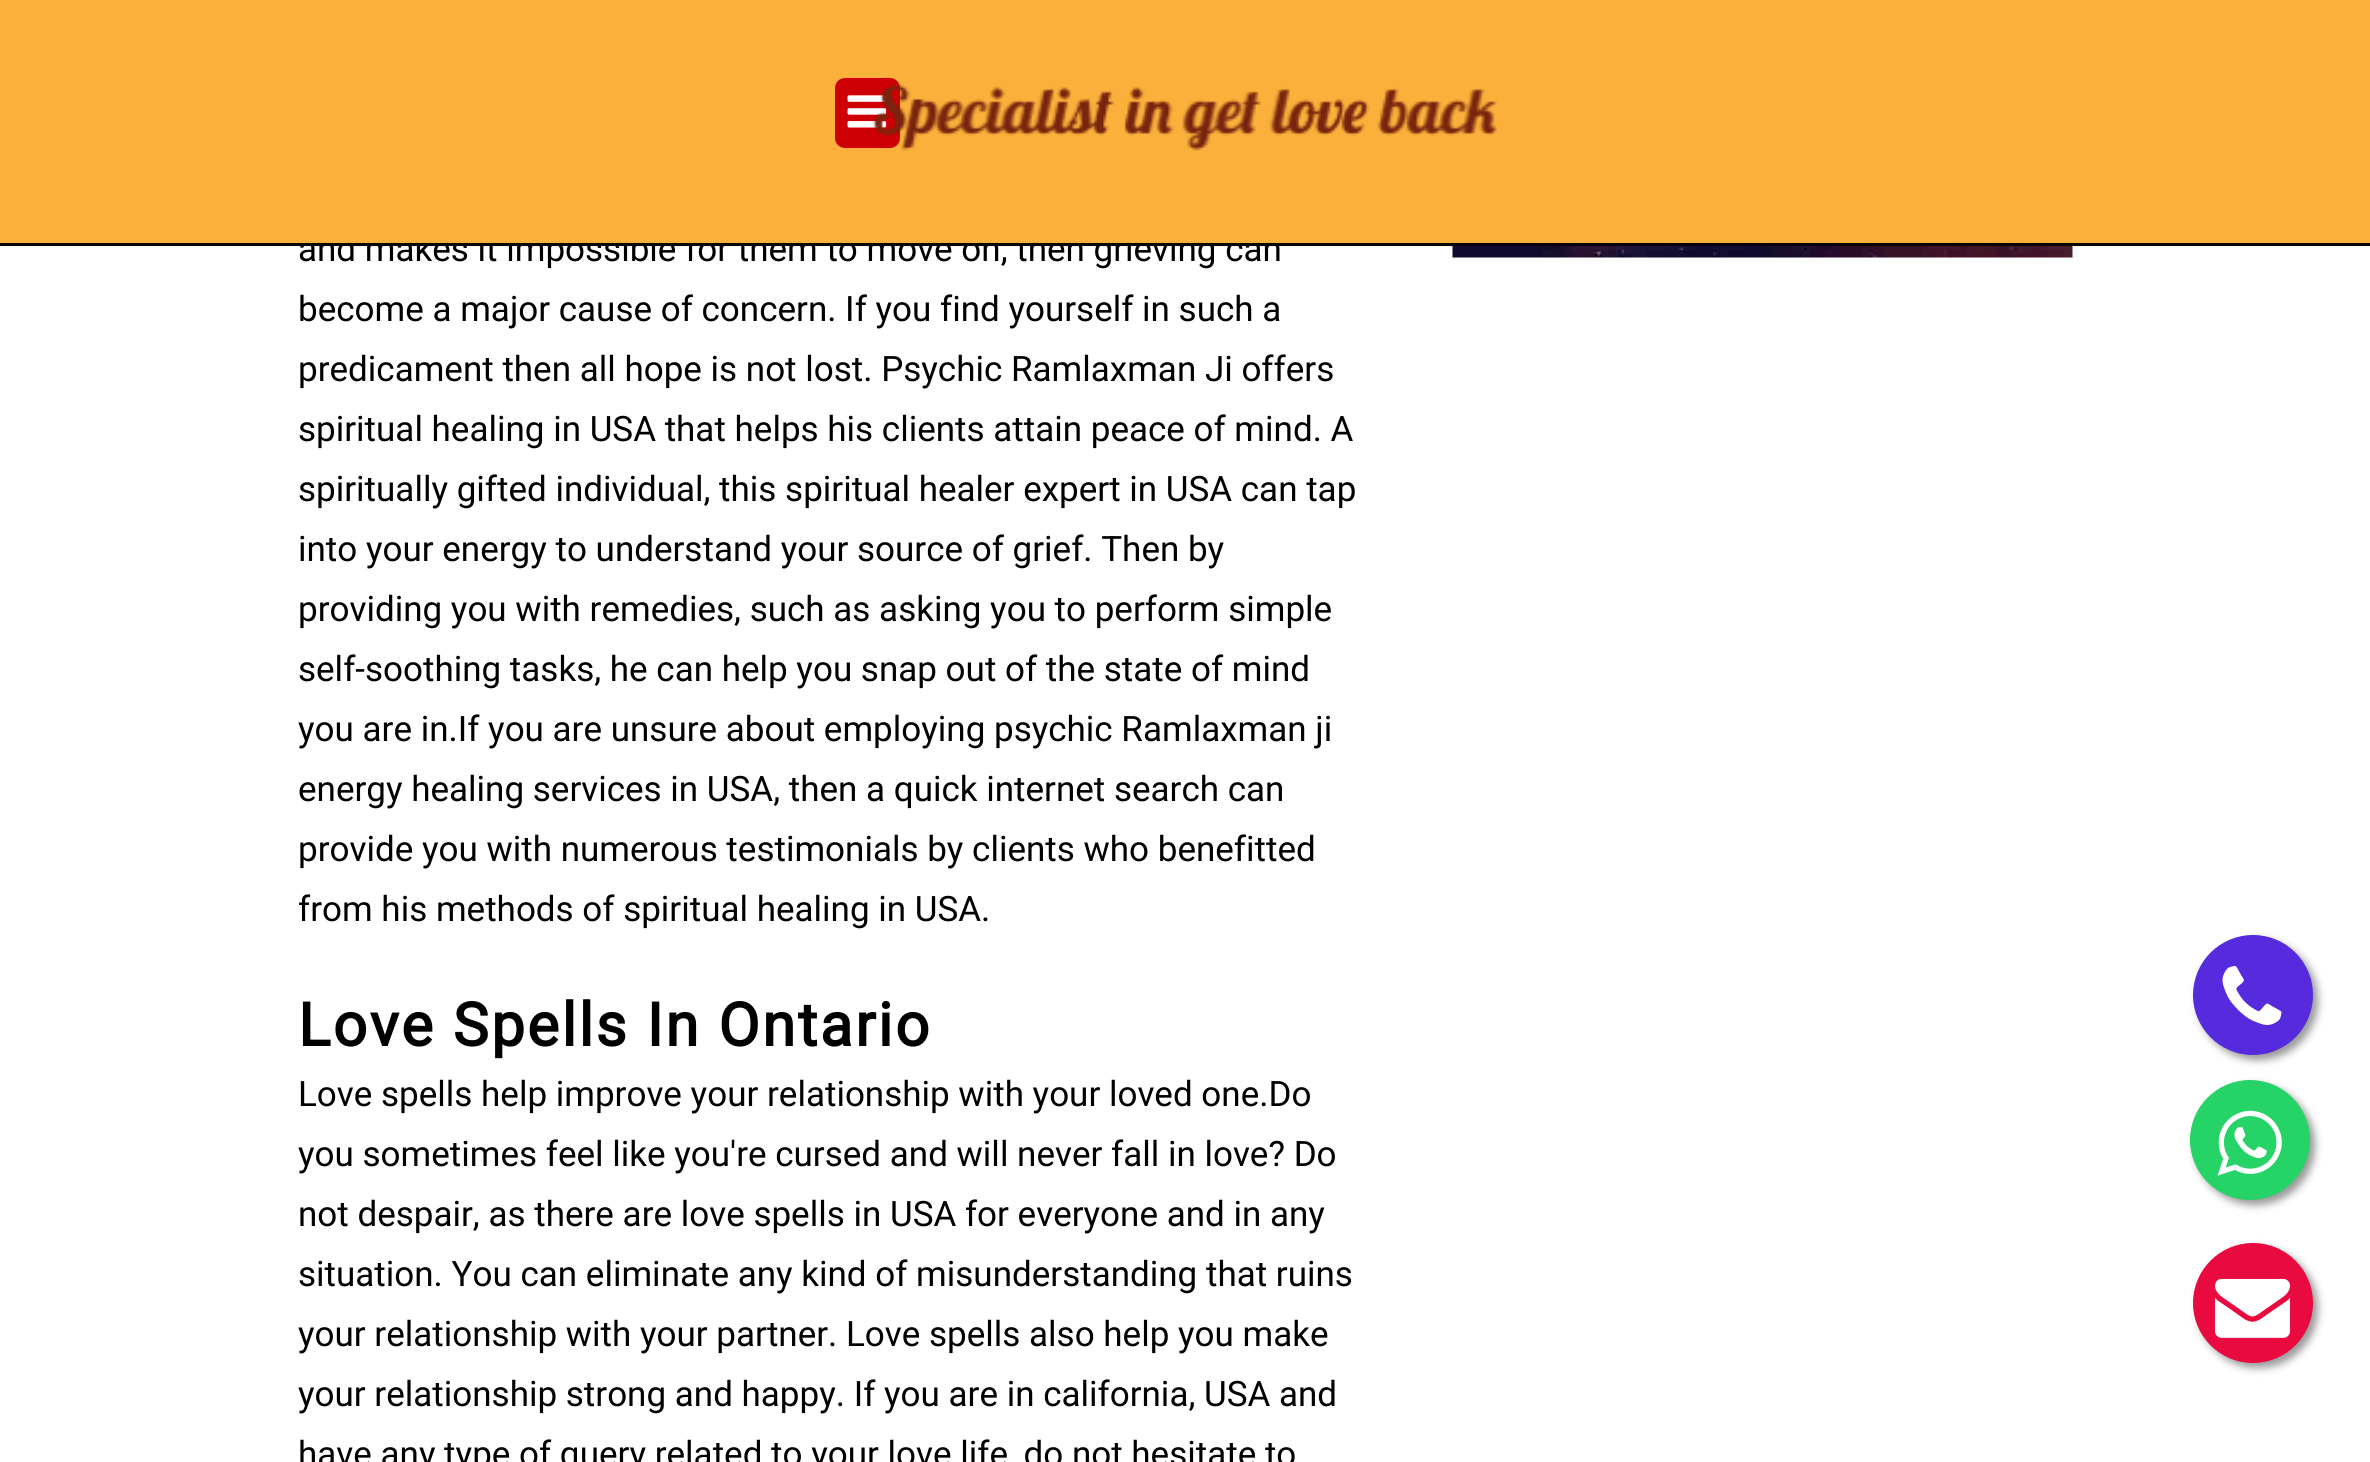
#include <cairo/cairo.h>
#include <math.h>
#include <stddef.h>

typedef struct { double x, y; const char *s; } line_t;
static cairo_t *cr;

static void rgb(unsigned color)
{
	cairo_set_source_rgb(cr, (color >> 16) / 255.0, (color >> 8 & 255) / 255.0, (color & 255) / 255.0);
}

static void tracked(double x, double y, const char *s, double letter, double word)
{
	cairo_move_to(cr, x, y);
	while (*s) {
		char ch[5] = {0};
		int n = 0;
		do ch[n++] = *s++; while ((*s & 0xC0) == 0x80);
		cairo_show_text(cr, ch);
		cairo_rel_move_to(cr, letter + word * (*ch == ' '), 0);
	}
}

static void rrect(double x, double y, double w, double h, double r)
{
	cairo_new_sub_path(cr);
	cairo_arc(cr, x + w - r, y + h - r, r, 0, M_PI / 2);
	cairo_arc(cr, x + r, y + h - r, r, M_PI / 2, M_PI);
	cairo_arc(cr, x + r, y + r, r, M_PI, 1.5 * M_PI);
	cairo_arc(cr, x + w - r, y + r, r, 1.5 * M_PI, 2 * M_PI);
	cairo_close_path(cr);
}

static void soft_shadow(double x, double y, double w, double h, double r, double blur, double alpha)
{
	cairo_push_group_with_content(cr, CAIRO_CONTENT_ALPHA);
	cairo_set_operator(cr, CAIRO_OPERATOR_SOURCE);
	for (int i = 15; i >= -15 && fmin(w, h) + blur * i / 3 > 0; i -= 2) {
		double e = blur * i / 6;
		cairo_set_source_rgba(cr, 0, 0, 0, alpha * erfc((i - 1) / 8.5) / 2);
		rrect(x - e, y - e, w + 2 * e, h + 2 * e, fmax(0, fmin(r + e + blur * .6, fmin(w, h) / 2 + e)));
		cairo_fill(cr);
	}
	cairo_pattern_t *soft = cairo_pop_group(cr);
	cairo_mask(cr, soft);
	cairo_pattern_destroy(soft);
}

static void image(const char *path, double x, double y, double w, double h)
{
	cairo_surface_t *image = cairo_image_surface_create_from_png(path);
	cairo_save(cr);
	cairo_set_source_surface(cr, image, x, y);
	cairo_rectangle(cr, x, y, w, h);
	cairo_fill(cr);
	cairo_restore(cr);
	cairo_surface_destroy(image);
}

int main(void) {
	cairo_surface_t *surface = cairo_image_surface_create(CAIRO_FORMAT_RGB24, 2370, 1462);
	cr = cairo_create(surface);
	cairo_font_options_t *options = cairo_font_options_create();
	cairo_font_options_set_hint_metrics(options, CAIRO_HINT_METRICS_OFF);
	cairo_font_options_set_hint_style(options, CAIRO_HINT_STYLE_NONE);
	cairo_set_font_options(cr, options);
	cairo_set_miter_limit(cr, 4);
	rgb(0xffffff);
	cairo_paint(cr);
	rgb(0x000000);
	cairo_rectangle(cr, 0, 243, 2370, 3);
	cairo_fill(cr);
	image("img/3.png", 1452, 246, 621, 12);
	rgb(0x999999);
	soft_shadow(2198, 940, 120, 120, 60, 4, 1);
	rgb(0x562add);
	cairo_arc(cr, 2253, 995, 60, 0, 2 * M_PI);
	cairo_fill(cr);
	image("img/4.png", 2222, 966, 60, 59);
	rgb(0x999999);
	soft_shadow(2195, 1085, 120, 120, 60, 4, 1);
	rgb(0x25d366);
	cairo_arc(cr, 2250, 1140, 60, 0, 2 * M_PI);
	cairo_fill(cr);
	image("img/5.png", 2217, 1110, 65, 66);
	rgb(0x999999);
	soft_shadow(2198, 1248, 120, 120, 60, 4, 1);
	rgb(0xe90a40);
	cairo_arc(cr, 2253, 1303, 60, 0, 2 * M_PI);
	cairo_fill(cr);
	image("img/6.png", 2215, 1278, 75, 60);
	cairo_select_font_face(cr, "Roboto", CAIRO_FONT_SLANT_NORMAL, CAIRO_FONT_WEIGHT_NORMAL);
	cairo_set_font_size(cr, 35);
	rgb(0x000000);
	cairo_move_to(cr, 298, 261);
	cairo_show_text(cr, "and makes it impossible for them to move on, then grieving can");
	rgb(0xfbb03b);
	cairo_rectangle(cr, 0, 0, 2370, 243);
	cairo_fill(cr);
	rgb(0xce0006);
	rrect(835, 78, 65, 70, 10);
	cairo_fill(cr);
	image("img/1.png", 847, 95, 40, 33);
	image("img/2.png", 872, 85, 625, 66);
	rgb(0x000000);
	{
		static const line_t items[] = {
			{298, 321, "become a major cause of concern. If you find yourself in such a"},
			{298, 381, "predicament then all hope is not lost. Psychic Ramlaxman Ji offers"},
			{298, 441, "spiritual healing in USA that helps his clients attain peace of mind. A"},
			{298, 501, "spiritually gifted individual, this spiritual healer expert in USA can tap"},
			{298, 561, "into your energy to understand your source of grief. Then by"},
			{298, 621, "providing you with remedies, such as asking you to perform simple"},
			{298, 681, "self-soothing tasks, he can help you snap out of the state of mind"},
			{298, 741, "you are in.If you are unsure about employing psychic Ramlaxman ji"},
			{298, 801, "energy healing services in USA, then a quick internet search can"},
			{298, 861, "provide you with numerous testimonials by clients who benefitted"},
			{298, 921, "from his methods of spiritual healing in USA."},
		};
		for (size_t i = 0; i < sizeof items / sizeof *items; i++) {
			cairo_move_to(cr, items[i].x, items[i].y);
			cairo_show_text(cr, items[i].s);
		}
	}
	cairo_select_font_face(cr, "Roboto", CAIRO_FONT_SLANT_NORMAL, CAIRO_FONT_WEIGHT_BOLD);
	cairo_set_font_size(cr, 60);
	tracked(298, 1046, "Love Spells In Ontario", 2.5, 0);
	cairo_select_font_face(cr, "Roboto", CAIRO_FONT_SLANT_NORMAL, CAIRO_FONT_WEIGHT_NORMAL);
	cairo_set_font_size(cr, 35);
	{
		static const line_t items[] = {
			{298, 1106, "Love spells help improve your relationship with your loved one.Do"},
			{298, 1166, "you sometimes feel like you're cursed and will never fall in love? Do"},
			{298, 1226, "not despair, as there are love spells in USA for everyone and in any"},
			{298, 1286, "situation. You can eliminate any kind of misunderstanding that ruins"},
			{298, 1346, "your relationship with your partner. Love spells also help you make"},
			{298, 1406, "your relationship strong and happy. If you are in california, USA and"},
			{298, 1466, "have any type of query related to your love life, do not hesitate to"},
		};
		for (size_t i = 0; i < sizeof items / sizeof *items; i++) {
			cairo_move_to(cr, items[i].x, items[i].y);
			cairo_show_text(cr, items[i].s);
		}
	}
	cairo_surface_write_to_png(surface, "page.png");
	cairo_font_options_destroy(options);
	cairo_destroy(cr);
	cairo_surface_destroy(surface);
	return 0;
}
